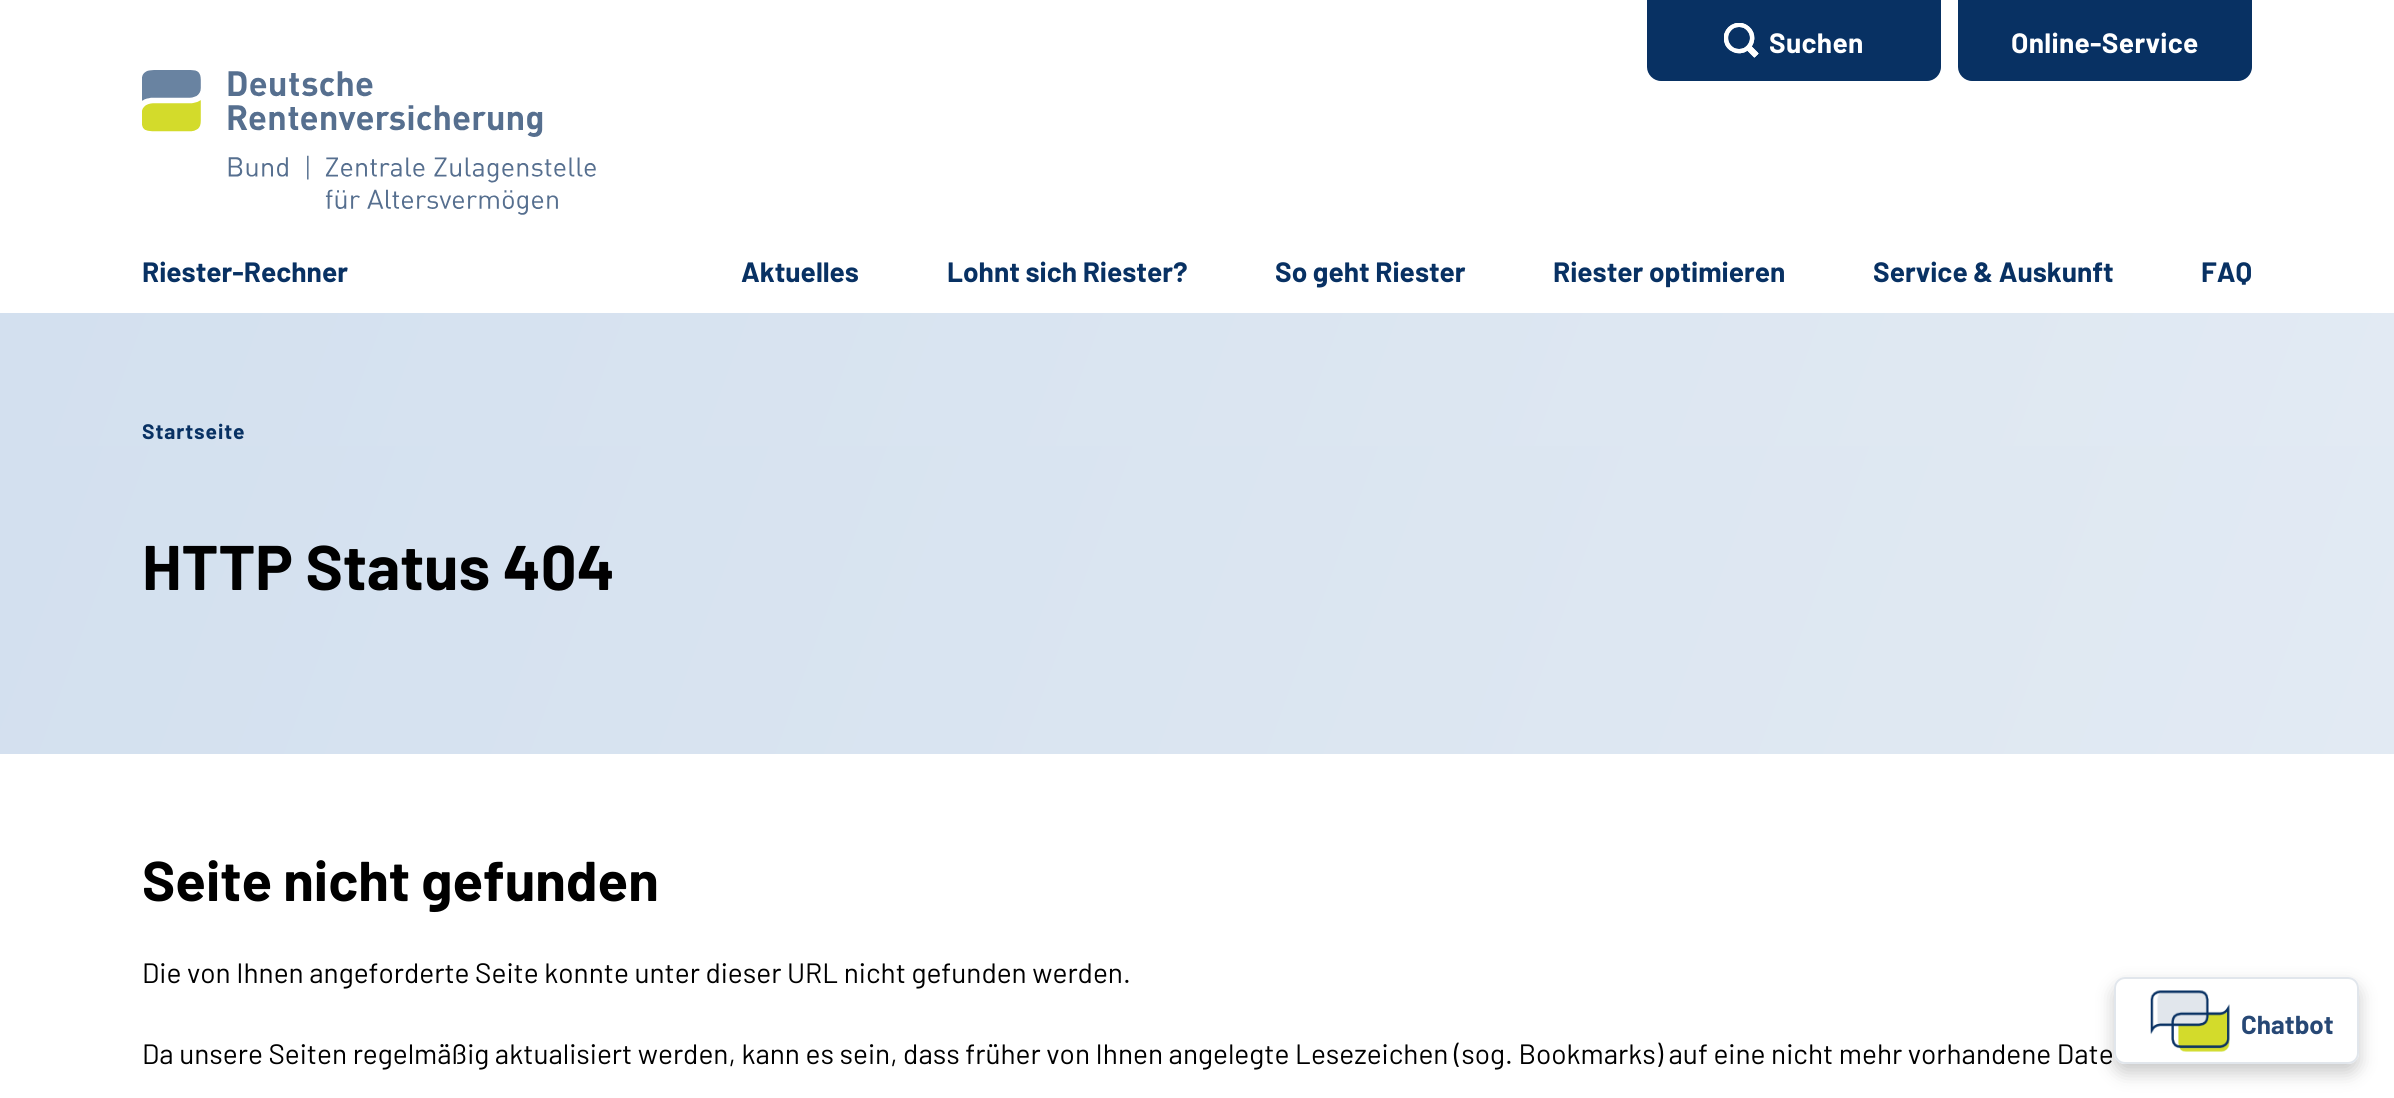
#include <cairo/cairo.h>
#include <math.h>
#include <stddef.h>

typedef struct { double x, y; const char *s; } line_t;
static cairo_t *cr;

static void rgb(unsigned color)
{
	cairo_set_source_rgb(cr, (color >> 16) / 255.0, (color >> 8 & 255) / 255.0, (color & 255) / 255.0);
}

static void tracked(double x, double y, const char *s, double letter, double word)
{
	cairo_move_to(cr, x, y);
	while (*s) {
		char ch[5] = {0};
		int n = 0;
		do ch[n++] = *s++; while ((*s & 0xC0) == 0x80);
		cairo_show_text(cr, ch);
		cairo_rel_move_to(cr, letter + word * (*ch == ' '), 0);
	}
}

static void rrect(double x, double y, double w, double h, double r)
{
	cairo_new_sub_path(cr);
	cairo_arc(cr, x + w - r, y + h - r, r, 0, M_PI / 2);
	cairo_arc(cr, x + r, y + h - r, r, M_PI / 2, M_PI);
	cairo_arc(cr, x + r, y + r, r, M_PI, 1.5 * M_PI);
	cairo_arc(cr, x + w - r, y + r, r, 1.5 * M_PI, 2 * M_PI);
	cairo_close_path(cr);
}

static void soft_shadow(double x, double y, double w, double h, double r, double blur, double alpha)
{
	cairo_push_group_with_content(cr, CAIRO_CONTENT_ALPHA);
	cairo_set_operator(cr, CAIRO_OPERATOR_SOURCE);
	for (int i = 15; i >= -15 && fmin(w, h) + blur * i / 3 > 0; i -= 2) {
		double e = blur * i / 6;
		cairo_set_source_rgba(cr, 0, 0, 0, alpha * erfc((i - 1) / 8.5) / 2);
		rrect(x - e, y - e, w + 2 * e, h + 2 * e, fmax(0, fmin(r + e + blur * .6, fmin(w, h) / 2 + e)));
		cairo_fill(cr);
	}
	cairo_pattern_t *soft = cairo_pop_group(cr);
	cairo_mask(cr, soft);
	cairo_pattern_destroy(soft);
}

static void image(const char *path, double x, double y, double w, double h)
{
	cairo_surface_t *image = cairo_image_surface_create_from_png(path);
	cairo_save(cr);
	cairo_set_source_surface(cr, image, x, y);
	cairo_rectangle(cr, x, y, w, h);
	cairo_fill(cr);
	cairo_restore(cr);
	cairo_surface_destroy(image);
}

int main(void) {
	cairo_surface_t *surface = cairo_image_surface_create(CAIRO_FORMAT_RGB24, 2394, 1098);
	cr = cairo_create(surface);
	cairo_font_options_t *options = cairo_font_options_create();
	cairo_font_options_set_hint_metrics(options, CAIRO_HINT_METRICS_OFF);
	cairo_font_options_set_hint_style(options, CAIRO_HINT_STYLE_NONE);
	cairo_set_font_options(cr, options);
	cairo_set_miter_limit(cr, 4);
	cairo_pattern_t *gradient;
	rgb(0xffffff);
	cairo_paint(cr);
	rgb(0x083163);
	cairo_new_path(cr);
	cairo_move_to(cr, 1647, 0);
	cairo_line_to(cr, 1941, 0);
	cairo_line_to(cr, 1941, 67);
	cairo_curve_to(cr, 1941, 74.5, 1934.5, 81, 1927, 81);
	cairo_line_to(cr, 1661, 81);
	cairo_curve_to(cr, 1653.5, 81, 1647, 74.5, 1647, 67);
	cairo_close_path(cr);
	cairo_fill(cr);
	image("img/1.png", 1724, 23, 35, 35);
	cairo_new_path(cr);
	cairo_move_to(cr, 1958, 0);
	cairo_line_to(cr, 2252, 0);
	cairo_line_to(cr, 2252, 67);
	cairo_curve_to(cr, 2252, 74.5, 2245.5, 81, 2238, 81);
	cairo_line_to(cr, 1972, 81);
	cairo_curve_to(cr, 1964.5, 81, 1958, 74.5, 1958, 67);
	cairo_close_path(cr);
	cairo_fill(cr);
	image("img/2.png", 142, 70, 454, 145);
	gradient = cairo_pattern_create_linear(119, -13, 2275, 772);
	cairo_pattern_add_color_stop_rgba(gradient, 0, 0.827, 0.878, 0.937, 1);
	cairo_pattern_add_color_stop_rgba(gradient, 1, 0.886, 0.918, 0.953, 1);
	cairo_set_source(cr, gradient);
	cairo_pattern_destroy(gradient);
	cairo_rectangle(cr, 0, 313, 2394, 133);
	cairo_fill(cr);
	gradient = cairo_pattern_create_linear(91, 198, 2303, 1003);
	cairo_pattern_add_color_stop_rgba(gradient, 0, 0.827, 0.878, 0.937, 1);
	cairo_pattern_add_color_stop_rgba(gradient, 1, 0.886, 0.918, 0.953, 1);
	cairo_set_source(cr, gradient);
	cairo_pattern_destroy(gradient);
	cairo_rectangle(cr, 0, 446, 2394, 308);
	cairo_fill(cr);
	rgb(0x000000);
	soft_shadow(2114, 985, 245, 88, 11, 9, 0.21);
	rgb(0xffffff);
	rrect(2114, 977, 245, 87, 11);
	cairo_fill(cr);
	image("img/3.png", 2150, 990, 80, 62);
	rrect(2115, 978, 243, 85, 10);
	rgb(0xe1e6ec);
	cairo_stroke(cr);
	cairo_select_font_face(cr, "Barlow", CAIRO_FONT_SLANT_NORMAL, CAIRO_FONT_WEIGHT_BOLD);
	cairo_set_font_size(cr, 28);
	rgb(0xffffff);
	tracked(1769, 53, "Suchen", 0.3, 0);
	tracked(2011, 53, "Online-Service", 0.3, 0);
	rgb(0x083163);
	{
		static const line_t items[] = {
			{142, 282, "Riester-Rechner"},
			{741, 282, "Aktuelles"},
			{947, 282, "Lohnt sich Riester?"},
			{1275, 282, "So geht Riester"},
			{1553, 282, "Riester optimieren"},
			{1873, 282, "Service & Auskunft"},
			{2201, 282, "FAQ"},
		};
		for (size_t i = 0; i < sizeof items / sizeof *items; i++) {
			cairo_move_to(cr, items[i].x, items[i].y);
			cairo_show_text(cr, items[i].s);
		}
	}
	cairo_set_font_size(cr, 21);
	tracked(142, 439, "Startseite", 0.9, 0);
	cairo_set_font_size(cr, 63);
	rgb(0x000000);
	cairo_move_to(cr, 142, 590);
	cairo_show_text(cr, "HTTP Status 404");
	cairo_set_font_size(cr, 56);
	cairo_move_to(cr, 142, 901);
	cairo_show_text(cr, "Seite nicht gefunden");
	cairo_select_font_face(cr, "Barlow", CAIRO_FONT_SLANT_NORMAL, CAIRO_FONT_WEIGHT_NORMAL);
	cairo_set_font_size(cr, 28);
	cairo_move_to(cr, 142, 983);
	cairo_show_text(cr, "Die von Ihnen angeforderte Seite konnte unter dieser URL nicht gefunden werden.");
	cairo_move_to(cr, 142, 1064);
	cairo_show_text(cr, "Da unsere Seiten regelmäßig aktualisiert werden, kann es sein, dass früher von Ihnen angelegte Lesezeichen (sog. Bookmarks) auf eine nicht mehr vorhandene Date");
	cairo_select_font_face(cr, "Barlow", CAIRO_FONT_SLANT_NORMAL, CAIRO_FONT_WEIGHT_BOLD);
	cairo_set_font_size(cr, 26);
	rgb(0x274875);
	cairo_move_to(cr, 2241, 1034);
	cairo_show_text(cr, "Chatbot");
	cairo_surface_write_to_png(surface, "page.png");
	cairo_font_options_destroy(options);
	cairo_destroy(cr);
	cairo_surface_destroy(surface);
	return 0;
}
